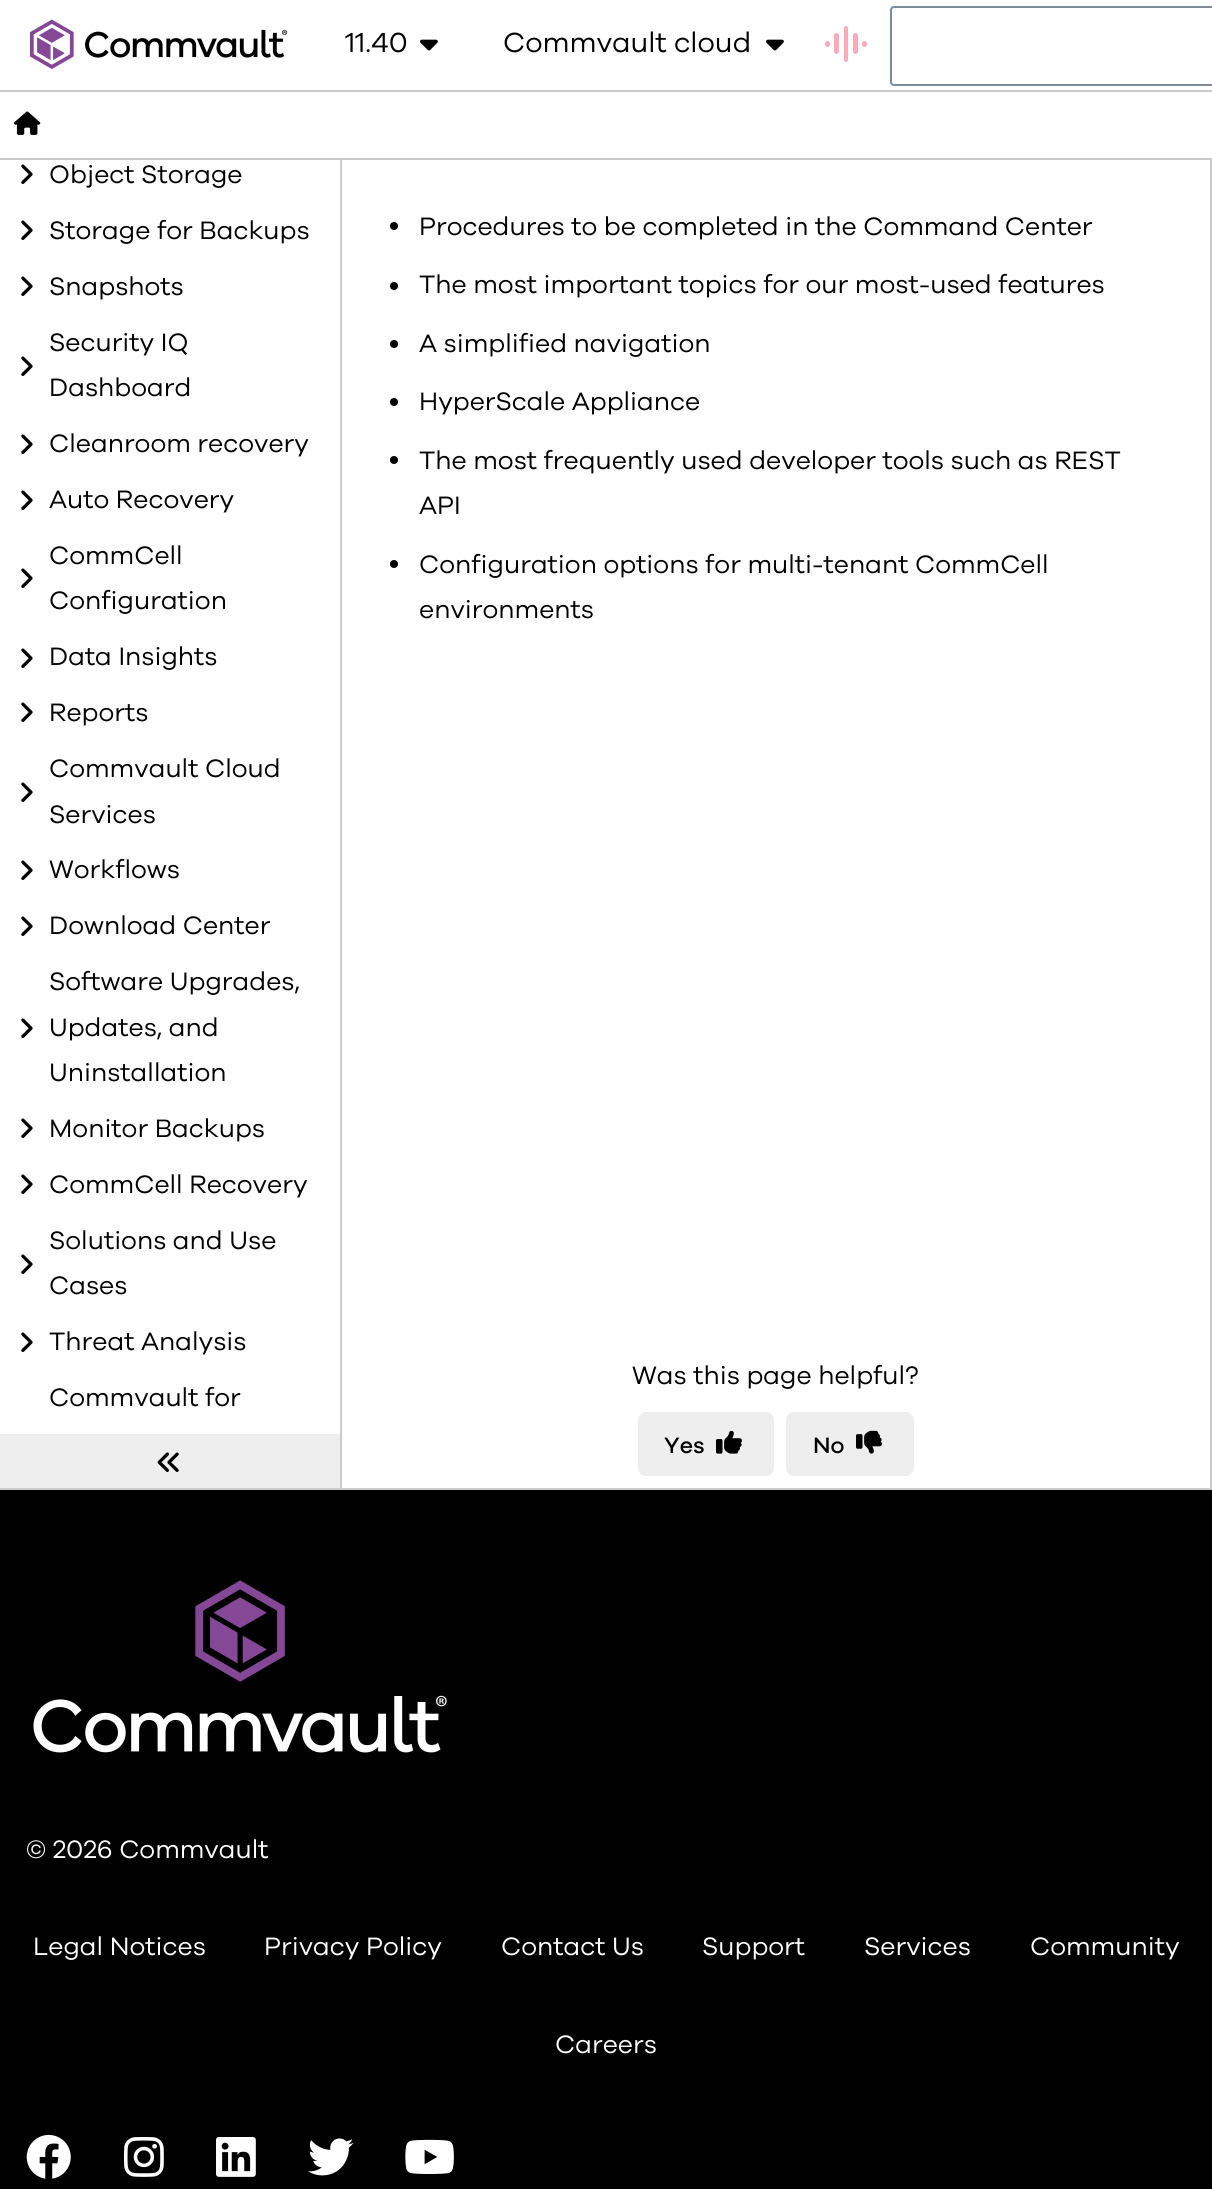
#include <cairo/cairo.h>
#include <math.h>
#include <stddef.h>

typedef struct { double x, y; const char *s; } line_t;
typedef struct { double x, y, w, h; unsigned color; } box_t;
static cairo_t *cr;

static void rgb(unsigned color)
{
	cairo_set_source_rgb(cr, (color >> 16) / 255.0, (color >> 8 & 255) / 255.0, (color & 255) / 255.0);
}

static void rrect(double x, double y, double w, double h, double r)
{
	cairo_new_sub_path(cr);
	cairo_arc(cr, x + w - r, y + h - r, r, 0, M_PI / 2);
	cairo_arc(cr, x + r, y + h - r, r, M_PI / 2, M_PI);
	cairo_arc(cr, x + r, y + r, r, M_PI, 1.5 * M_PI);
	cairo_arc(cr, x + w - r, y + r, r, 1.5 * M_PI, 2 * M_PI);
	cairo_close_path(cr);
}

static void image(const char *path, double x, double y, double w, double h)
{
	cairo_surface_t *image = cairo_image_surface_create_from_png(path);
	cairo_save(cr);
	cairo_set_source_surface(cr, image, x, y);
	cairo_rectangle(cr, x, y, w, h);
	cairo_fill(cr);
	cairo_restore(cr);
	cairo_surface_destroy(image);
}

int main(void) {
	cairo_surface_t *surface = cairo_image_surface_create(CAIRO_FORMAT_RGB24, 1212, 2189);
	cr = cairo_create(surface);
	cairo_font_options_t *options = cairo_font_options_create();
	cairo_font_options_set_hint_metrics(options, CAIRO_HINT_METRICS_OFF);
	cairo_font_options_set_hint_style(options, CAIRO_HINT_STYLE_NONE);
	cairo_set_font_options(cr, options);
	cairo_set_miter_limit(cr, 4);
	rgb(0xffffff);
	cairo_paint(cr);
	rgb(0xcccccc);
	cairo_rectangle(cr, 0, 90, 1212, 2);
	cairo_fill(cr);
	image("img/1.png", 29, 19, 259, 50);
	image("img/2.png", 420, 39, 18, 12);
	image("img/2.png", 766, 39, 18, 12);
	rgb(0xffaabb);
	rrect(825, 41, 5, 6, 2.5);
	cairo_fill(cr);
	rrect(834, 33, 5, 21, 2.5);
	cairo_fill(cr);
	rrect(844, 26, 4, 36, 2);
	cairo_fill(cr);
	rrect(853, 33, 5, 21, 2.5);
	cairo_fill(cr);
	rrect(862, 41, 5, 6, 2.5);
	cairo_fill(cr);
	rrect(891, 7, 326, 78, 3);
	rgb(0x7e8c9a);
	cairo_stroke(cr);
	image("img/3.png", 21, 164, 12, 20);
	image("img/3.png", 21, 220, 12, 20);
	image("img/3.png", 21, 276, 12, 20);
	image("img/3.png", 21, 356, 12, 20);
	image("img/3.png", 21, 434, 12, 20);
	image("img/3.png", 21, 490, 12, 20);
	image("img/3.png", 21, 568, 12, 20);
	image("img/3.png", 21, 648, 12, 20);
	image("img/3.png", 21, 702, 12, 20);
	image("img/3.png", 21, 782, 12, 20);
	image("img/3.png", 21, 860, 12, 20);
	image("img/3.png", 21, 916, 12, 20);
	image("img/3.png", 21, 1018, 12, 20);
	image("img/3.png", 21, 1118, 12, 20);
	image("img/3.png", 21, 1174, 12, 20);
	image("img/3.png", 21, 1254, 12, 20);
	image("img/3.png", 21, 1332, 12, 20);
	rgb(0xeeeeee);
	cairo_rectangle(cr, 0, 1434, 340, 54);
	cairo_fill(cr);
	image("img/4.png", 157, 1452, 22, 20);
	{
		static const box_t items[] = {
			{340, 160, 2, 1328, 0xcccccc},
			{1210, 160, 2, 1328, 0xcccccc},
			{0, 158, 1212, 2, 0xcccccc},
		};
		for (size_t i = 0; i < sizeof items / sizeof *items; i++) {
			rgb(items[i].color);
			cairo_rectangle(cr, items[i].x, items[i].y, items[i].w, items[i].h);
			cairo_fill(cr);
		}
	}
	image("img/5.png", 14, 111, 27, 24);
	rgb(0x000000);
	cairo_arc(cr, 394, 226, 4, 0, 2 * M_PI);
	cairo_fill(cr);
	cairo_arc(cr, 394, 286, 4, 0, 2 * M_PI);
	cairo_fill(cr);
	cairo_arc(cr, 394, 344, 4, 0, 2 * M_PI);
	cairo_fill(cr);
	cairo_arc(cr, 394, 402, 4, 0, 2 * M_PI);
	cairo_fill(cr);
	cairo_arc(cr, 394, 460, 4, 0, 2 * M_PI);
	cairo_fill(cr);
	cairo_arc(cr, 394, 564, 4, 0, 2 * M_PI);
	cairo_fill(cr);
	rgb(0xeeeeee);
	rrect(638, 1412, 136, 64, 8);
	cairo_fill(cr);
	image("img/6.png", 716, 1430, 26, 24);
	rrect(786, 1412, 128, 64, 8);
	cairo_fill(cr);
	image("img/7.png", 856, 1430, 26, 24);
	rgb(0x000000);
	cairo_rectangle(cr, 0, 1490, 1212, 699);
	cairo_fill(cr);
	rgb(0xcccccc);
	cairo_rectangle(cr, 0, 1488, 1212, 2);
	cairo_fill(cr);
	image("img/8.png", 33, 1580, 414, 173);
	image("img/9.png", 26, 2134, 45, 45);
	image("img/10.png", 124, 2137, 40, 40);
	image("img/11.png", 216, 2137, 40, 40);
	image("img/12.png", 308, 2138, 46, 38);
	image("img/13.png", 405, 2139, 49, 35);
	cairo_select_font_face(cr, "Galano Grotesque", CAIRO_FONT_SLANT_NORMAL, CAIRO_FONT_WEIGHT_NORMAL);
	cairo_set_font_size(cr, 28.5);
	rgb(0x000000);
	cairo_move_to(cr, 345, 52);
	cairo_show_text(cr, "11.40");
	cairo_move_to(cr, 503, 52);
	cairo_show_text(cr, "Commvault cloud");
	cairo_set_font_size(cr, 26);
	{
		static const line_t items[] = {
			{49, 183, "Object Storage"},
			{49, 239, "Storage for Backups"},
			{49, 295, "Snapshots"},
			{49, 351, "Security IQ"},
			{49, 396, "Dashboard"},
			{49, 452, "Cleanroom recovery"},
			{49, 508, "Auto Recovery"},
			{49, 564, "CommCell"},
			{49, 609, "Configuration"},
			{49, 665, "Data Insights"},
			{49, 721, "Reports"},
			{49, 777, "Commvault Cloud"},
			{49, 823, "Services"},
			{49, 878, "Workflows"},
			{49, 934, "Download Center"},
			{49, 990, "Software Upgrades,"},
			{49, 1036, "Updates, and"},
			{49, 1081, "Uninstallation"},
			{49, 1137, "Monitor Backups"},
			{49, 1193, "CommCell Recovery"},
			{49, 1249, "Solutions and Use"},
			{49, 1294, "Cases"},
			{49, 1350, "Threat Analysis"},
			{49, 1406, "Commvault for"},
			{419, 235, "Procedures to be completed in the Command Center"},
			{419, 293, "The most important topics for our most-used features"},
			{419, 352, "A simplified navigation"},
			{419, 410, "HyperScale Appliance"},
			{419, 469, "The most frequently used developer tools such as REST"},
			{419, 514, "API"},
			{419, 573, "Configuration options for multi-tenant CommCell"},
			{419, 618, "environments"},
			{632, 1384, "Was this page helpful?"},
		};
		for (size_t i = 0; i < sizeof items / sizeof *items; i++) {
			cairo_move_to(cr, items[i].x, items[i].y);
			cairo_show_text(cr, items[i].s);
		}
	}
	cairo_select_font_face(cr, "Galano Grotesque Medium", CAIRO_FONT_SLANT_NORMAL, CAIRO_FONT_WEIGHT_NORMAL);
	cairo_set_font_size(cr, 23);
	cairo_move_to(cr, 664, 1453);
	cairo_show_text(cr, "Yes");
	cairo_move_to(cr, 813, 1453);
	cairo_show_text(cr, "No");
	cairo_select_font_face(cr, "Galano Grotesque", CAIRO_FONT_SLANT_NORMAL, CAIRO_FONT_WEIGHT_NORMAL);
	cairo_set_font_size(cr, 26);
	rgb(0xffffff);
	{
		static const line_t items[] = {
			{26, 1858, "© 2026 Commvault"},
			{33, 1955, "Legal Notices"},
			{264, 1955, "Privacy Policy"},
			{501, 1955, "Contact Us"},
			{702, 1955, "Support"},
			{864, 1955, "Services"},
			{1030, 1955, "Community"},
			{555, 2053, "Careers"},
		};
		for (size_t i = 0; i < sizeof items / sizeof *items; i++) {
			cairo_move_to(cr, items[i].x, items[i].y);
			cairo_show_text(cr, items[i].s);
		}
	}
	cairo_surface_write_to_png(surface, "page.png");
	cairo_font_options_destroy(options);
	cairo_destroy(cr);
	cairo_surface_destroy(surface);
	return 0;
}
